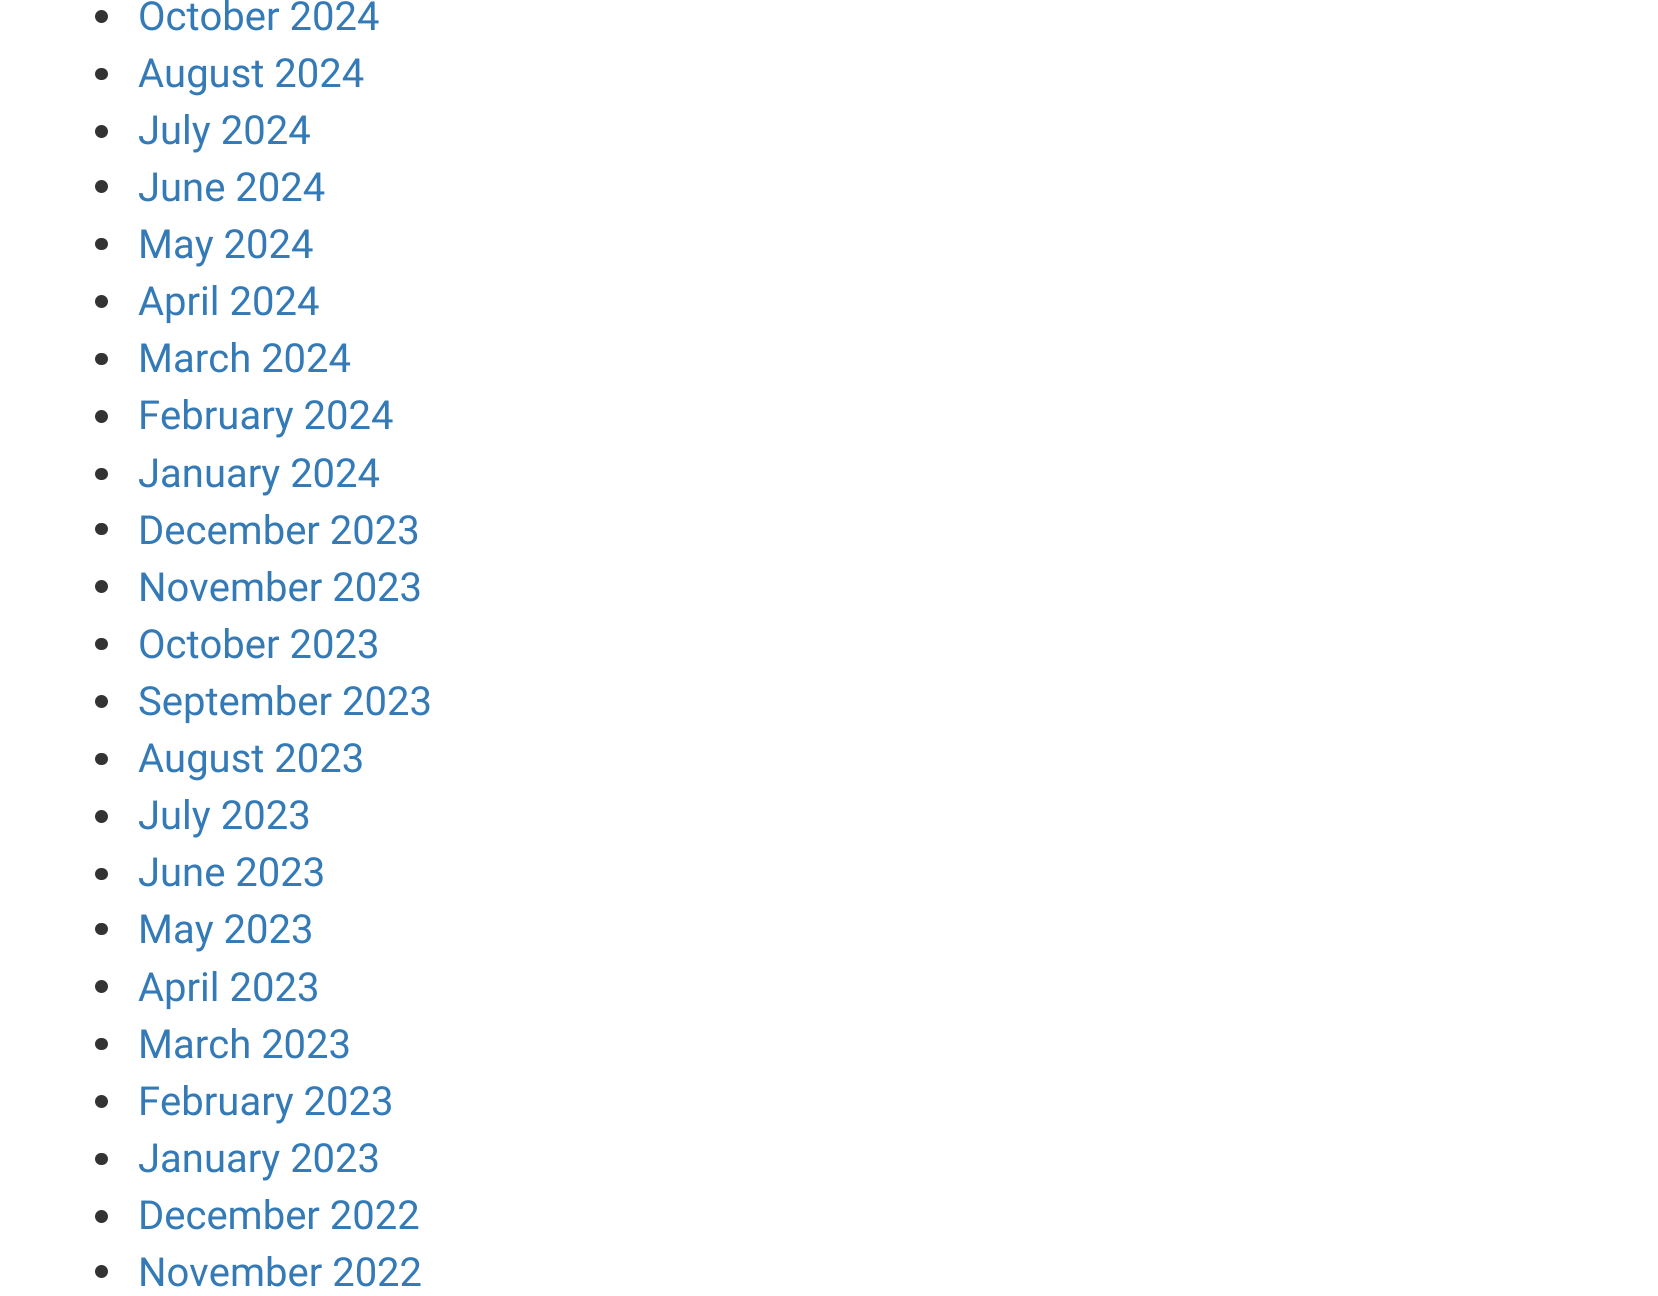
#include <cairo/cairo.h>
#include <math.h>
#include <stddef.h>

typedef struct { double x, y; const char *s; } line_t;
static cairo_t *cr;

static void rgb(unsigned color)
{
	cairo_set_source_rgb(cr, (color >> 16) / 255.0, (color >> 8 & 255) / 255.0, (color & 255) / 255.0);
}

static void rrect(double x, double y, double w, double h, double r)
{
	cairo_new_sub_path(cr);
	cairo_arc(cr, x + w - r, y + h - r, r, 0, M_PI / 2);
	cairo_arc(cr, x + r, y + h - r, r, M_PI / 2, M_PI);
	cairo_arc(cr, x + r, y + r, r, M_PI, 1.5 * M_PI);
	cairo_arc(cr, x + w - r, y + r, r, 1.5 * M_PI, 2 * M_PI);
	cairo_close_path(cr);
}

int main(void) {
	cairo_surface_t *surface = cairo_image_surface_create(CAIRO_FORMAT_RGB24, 1658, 1296);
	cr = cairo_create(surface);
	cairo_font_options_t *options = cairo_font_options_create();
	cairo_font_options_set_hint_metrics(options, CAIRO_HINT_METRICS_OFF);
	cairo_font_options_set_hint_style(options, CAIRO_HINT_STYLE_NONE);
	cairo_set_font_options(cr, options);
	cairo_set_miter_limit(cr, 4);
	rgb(0xffffff);
	cairo_paint(cr);
	rgb(0x333333);
	cairo_arc(cr, 101.5, 16.5, 6.5, 0, 2 * M_PI);
	cairo_fill(cr);
	rrect(95, 68, 13, 12, 6);
	cairo_fill(cr);
	cairo_arc(cr, 101.5, 131.5, 6.5, 0, 2 * M_PI);
	cairo_fill(cr);
	cairo_arc(cr, 101.5, 186.5, 6.5, 0, 2 * M_PI);
	cairo_fill(cr);
	rrect(95, 238, 13, 12, 6);
	cairo_fill(cr);
	cairo_arc(cr, 101.5, 301.5, 6.5, 0, 2 * M_PI);
	cairo_fill(cr);
	rrect(95, 353, 13, 12, 6);
	cairo_fill(cr);
	cairo_arc(cr, 101.5, 416.5, 6.5, 0, 2 * M_PI);
	cairo_fill(cr);
	rrect(95, 468, 13, 12, 6);
	cairo_fill(cr);
	rrect(95, 523, 13, 12, 6);
	cairo_fill(cr);
	cairo_arc(cr, 101.5, 586.5, 6.5, 0, 2 * M_PI);
	cairo_fill(cr);
	rrect(95, 638, 13, 12, 6);
	cairo_fill(cr);
	cairo_arc(cr, 101.5, 701.5, 6.5, 0, 2 * M_PI);
	cairo_fill(cr);
	rrect(95, 753, 13, 12, 6);
	cairo_fill(cr);
	cairo_arc(cr, 101.5, 816.5, 6.5, 0, 2 * M_PI);
	cairo_fill(cr);
	rrect(95, 868, 13, 12, 6);
	cairo_fill(cr);
	rrect(95, 923, 13, 12, 6);
	cairo_fill(cr);
	cairo_arc(cr, 101.5, 986.5, 6.5, 0, 2 * M_PI);
	cairo_fill(cr);
	rrect(95, 1038, 13, 12, 6);
	cairo_fill(cr);
	cairo_arc(cr, 101.5, 1101.5, 6.5, 0, 2 * M_PI);
	cairo_fill(cr);
	rrect(95, 1153, 13, 12, 6);
	cairo_fill(cr);
	cairo_arc(cr, 101.5, 1216.5, 6.5, 0, 2 * M_PI);
	cairo_fill(cr);
	cairo_arc(cr, 101.5, 1271.5, 6.5, 0, 2 * M_PI);
	cairo_fill(cr);
	cairo_select_font_face(cr, "Roboto", CAIRO_FONT_SLANT_NORMAL, CAIRO_FONT_WEIGHT_NORMAL);
	cairo_set_font_size(cr, 40);
	rgb(0x337ab7);
	{
		static const line_t items[] = {
			{138, 30, "October 2024"},
			{138, 87, "August 2024"},
			{138, 144, "July 2024"},
			{138, 201, "June 2024"},
			{138, 258, "May 2024"},
			{138, 315, "April 2024"},
			{138, 372, "March 2024"},
			{138, 429, "February 2024"},
			{138, 487, "January 2024"},
			{138, 544, "December 2023"},
			{138, 601, "November 2023"},
			{138, 658, "October 2023"},
			{138, 715, "September 2023"},
			{138, 772, "August 2023"},
			{138, 829, "July 2023"},
			{138, 886, "June 2023"},
			{138, 943, "May 2023"},
			{138, 1001, "April 2023"},
			{138, 1058, "March 2023"},
			{138, 1115, "February 2023"},
			{138, 1172, "January 2023"},
			{138, 1229, "December 2022"},
			{138, 1286, "November 2022"},
		};
		for (size_t i = 0; i < sizeof items / sizeof *items; i++) {
			cairo_move_to(cr, items[i].x, items[i].y);
			cairo_show_text(cr, items[i].s);
		}
	}
	cairo_surface_write_to_png(surface, "page.png");
	cairo_font_options_destroy(options);
	cairo_destroy(cr);
	cairo_surface_destroy(surface);
	return 0;
}
